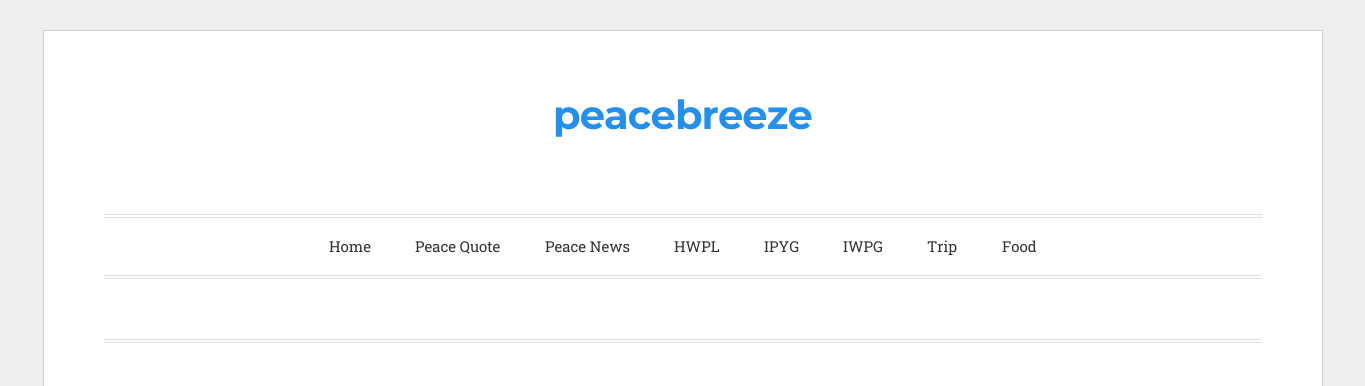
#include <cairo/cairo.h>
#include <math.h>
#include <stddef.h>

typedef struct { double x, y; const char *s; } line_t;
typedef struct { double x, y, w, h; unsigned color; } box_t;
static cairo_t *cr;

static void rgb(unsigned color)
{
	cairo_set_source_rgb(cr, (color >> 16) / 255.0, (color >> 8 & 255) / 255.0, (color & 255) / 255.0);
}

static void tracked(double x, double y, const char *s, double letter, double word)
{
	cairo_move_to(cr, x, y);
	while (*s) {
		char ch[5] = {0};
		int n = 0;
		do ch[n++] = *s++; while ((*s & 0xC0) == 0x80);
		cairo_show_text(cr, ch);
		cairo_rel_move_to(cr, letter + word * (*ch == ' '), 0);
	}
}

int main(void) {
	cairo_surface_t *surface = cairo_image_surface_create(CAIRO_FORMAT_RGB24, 1365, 386);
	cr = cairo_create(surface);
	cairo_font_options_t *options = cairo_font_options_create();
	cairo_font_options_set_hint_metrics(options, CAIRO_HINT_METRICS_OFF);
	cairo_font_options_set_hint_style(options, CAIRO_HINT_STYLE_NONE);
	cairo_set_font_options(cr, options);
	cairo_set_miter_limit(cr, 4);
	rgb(0xeeeeee);
	cairo_paint(cr);
	rgb(0xffffff);
	cairo_rectangle(cr, 43.5, 30.5, 1279, 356);
	cairo_fill_preserve(cr);
	rgb(0xcccccc);
	cairo_set_line_width(cr, 1);
	cairo_stroke(cr);
	{
		static const box_t items[] = {
			{104, 214, 1158, 1, 0xe1e1e1},
			{104, 217, 1158, 1, 0xe1e1e1},
			{104, 275, 1158, 1, 0xe1e1e1},
			{104, 278, 1158, 1, 0xe1e1e1},
			{104, 339, 1158, 1, 0xe1e1e1},
			{104, 342, 1158, 1, 0xe1e1e1},
		};
		for (size_t i = 0; i < sizeof items / sizeof *items; i++) {
			rgb(items[i].color);
			cairo_rectangle(cr, items[i].x, items[i].y, items[i].w, items[i].h);
			cairo_fill(cr);
		}
	}
	cairo_select_font_face(cr, "Montserrat", CAIRO_FONT_SLANT_NORMAL, CAIRO_FONT_WEIGHT_BOLD);
	cairo_set_font_size(cr, 40);
	rgb(0x2590ec);
	tracked(553, 129, "peacebreeze", -0.9, 0);
	cairo_select_font_face(cr, "Roboto Slab", CAIRO_FONT_SLANT_NORMAL, CAIRO_FONT_WEIGHT_NORMAL);
	cairo_set_font_size(cr, 15);
	rgb(0x333333);
	{
		static const line_t items[] = {
			{329, 252, "Home"},
			{415, 252, "Peace Quote"},
			{545, 252, "Peace News"},
			{674, 252, "HWPL"},
			{764, 252, "IPYG"},
			{843, 252, "IWPG"},
			{927, 252, "Trip"},
			{1002, 252, "Food"},
		};
		for (size_t i = 0; i < sizeof items / sizeof *items; i++) {
			cairo_move_to(cr, items[i].x, items[i].y);
			cairo_show_text(cr, items[i].s);
		}
	}
	cairo_surface_write_to_png(surface, "page.png");
	cairo_font_options_destroy(options);
	cairo_destroy(cr);
	cairo_surface_destroy(surface);
	return 0;
}
